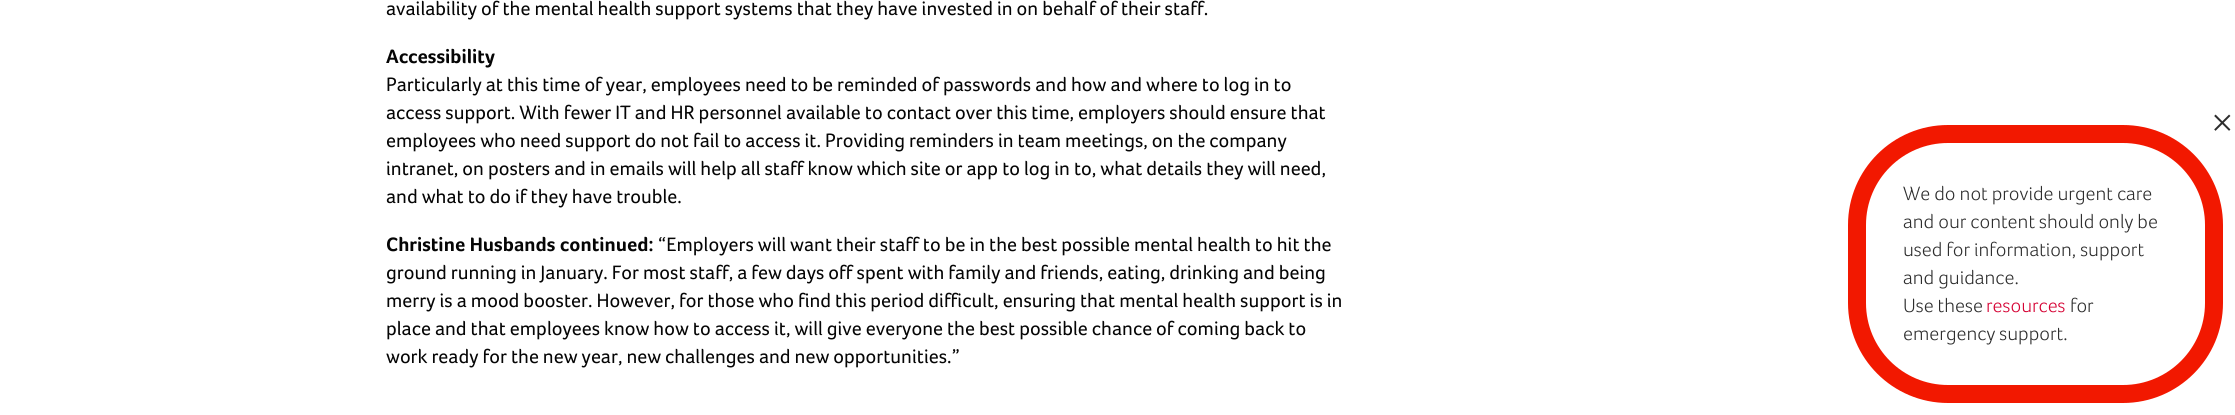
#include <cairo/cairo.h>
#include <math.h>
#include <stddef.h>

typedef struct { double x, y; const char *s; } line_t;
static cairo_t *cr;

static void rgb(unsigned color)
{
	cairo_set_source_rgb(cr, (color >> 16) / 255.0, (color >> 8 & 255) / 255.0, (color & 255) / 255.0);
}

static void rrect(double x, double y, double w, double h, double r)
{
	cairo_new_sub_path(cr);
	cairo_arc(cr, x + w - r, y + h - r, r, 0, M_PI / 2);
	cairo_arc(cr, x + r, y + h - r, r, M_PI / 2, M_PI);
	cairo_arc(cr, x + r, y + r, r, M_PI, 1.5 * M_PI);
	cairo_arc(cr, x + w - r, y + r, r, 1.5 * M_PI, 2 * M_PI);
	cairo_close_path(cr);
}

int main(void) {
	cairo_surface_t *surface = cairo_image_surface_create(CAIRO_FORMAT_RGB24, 2235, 415);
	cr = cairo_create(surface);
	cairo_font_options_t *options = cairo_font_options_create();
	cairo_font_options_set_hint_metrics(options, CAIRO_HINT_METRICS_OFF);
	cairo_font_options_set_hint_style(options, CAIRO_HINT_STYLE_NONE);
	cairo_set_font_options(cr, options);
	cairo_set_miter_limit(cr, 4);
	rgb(0xffffff);
	cairo_paint(cr);
	rrect(1857, 134, 357, 260, 91);
	rgb(0xf21800);
	cairo_set_line_width(cr, 18);
	cairo_stroke(cr);
	cairo_select_font_face(cr, "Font", CAIRO_FONT_SLANT_NORMAL, CAIRO_FONT_WEIGHT_NORMAL);
	cairo_set_font_size(cr, 20);
	rgb(0x050505);
	cairo_move_to(cr, 386, 15);
	cairo_show_text(cr, "availability of the mental health support systems that they have invested in on behalf of their staff.");
	cairo_select_font_face(cr, "Font", CAIRO_FONT_SLANT_NORMAL, CAIRO_FONT_WEIGHT_BOLD);
	cairo_move_to(cr, 386, 63);
	cairo_show_text(cr, "Accessibility");
	cairo_select_font_face(cr, "Font", CAIRO_FONT_SLANT_NORMAL, CAIRO_FONT_WEIGHT_NORMAL);
	{
		static const line_t items[] = {
			{386, 91, "Particularly at this time of year, employees need to be reminded of passwords and how and where to log in to"},
			{386, 119, "access support. With fewer IT and HR personnel available to contact over this time, employers should ensure that"},
			{386, 147, "employees who need support do not fail to access it. Providing reminders in team meetings, on the company"},
			{386, 175, "intranet, on posters and in emails will help all staff know which site or app to log in to, what details they will need,"},
			{386, 203, "and what to do if they have trouble."},
		};
		for (size_t i = 0; i < sizeof items / sizeof *items; i++) {
			cairo_move_to(cr, items[i].x, items[i].y);
			cairo_show_text(cr, items[i].s);
		}
	}
	cairo_select_font_face(cr, "Font", CAIRO_FONT_SLANT_NORMAL, CAIRO_FONT_WEIGHT_BOLD);
	cairo_move_to(cr, 386, 251);
	cairo_show_text(cr, "Christine Husbands continued:");
	cairo_select_font_face(cr, "Font", CAIRO_FONT_SLANT_NORMAL, CAIRO_FONT_WEIGHT_NORMAL);
	{
		static const line_t items[] = {
			{658, 251, "“Employers will want their staff to be in the best possible mental health to hit the"},
			{386, 279, "ground running in January. For most staff, a few days off spent with family and friends, eating, drinking and being"},
			{386, 307, "merry is a mood booster. However, for those who find this period difficult, ensuring that mental health support is in"},
			{386, 335, "place and that employees know how to access it, will give everyone the best possible chance of coming back to"},
			{386, 363, "work ready for the new year, new challenges and new opportunities.”"},
		};
		for (size_t i = 0; i < sizeof items / sizeof *items; i++) {
			cairo_move_to(cr, items[i].x, items[i].y);
			cairo_show_text(cr, items[i].s);
		}
	}
	cairo_select_font_face(cr, "Liberation Serif", CAIRO_FONT_SLANT_NORMAL, CAIRO_FONT_WEIGHT_NORMAL);
	cairo_set_font_size(cr, 40);
	rgb(0x2d2d2d);
	cairo_move_to(cr, 2211, 136);
	cairo_show_text(cr, "×");
	cairo_select_font_face(cr, "Font Light", CAIRO_FONT_SLANT_NORMAL, CAIRO_FONT_WEIGHT_NORMAL);
	cairo_set_font_size(cr, 20);
	{
		static const line_t items[] = {
			{1903, 200, "We do not provide urgent care"},
			{1903, 228, "and our content should only be"},
			{1903, 256, "used for information, support"},
			{1903, 284, "and guidance."},
			{1903, 312, "Use these"},
		};
		for (size_t i = 0; i < sizeof items / sizeof *items; i++) {
			cairo_move_to(cr, items[i].x, items[i].y);
			cairo_show_text(cr, items[i].s);
		}
	}
	rgb(0xd50032);
	cairo_move_to(cr, 1986, 312);
	cairo_show_text(cr, "resources");
	rgb(0x2d2d2d);
	cairo_move_to(cr, 2070, 312);
	cairo_show_text(cr, "for");
	cairo_move_to(cr, 1903, 340);
	cairo_show_text(cr, "emergency support.");
	cairo_surface_write_to_png(surface, "page.png");
	cairo_font_options_destroy(options);
	cairo_destroy(cr);
	cairo_surface_destroy(surface);
	return 0;
}
